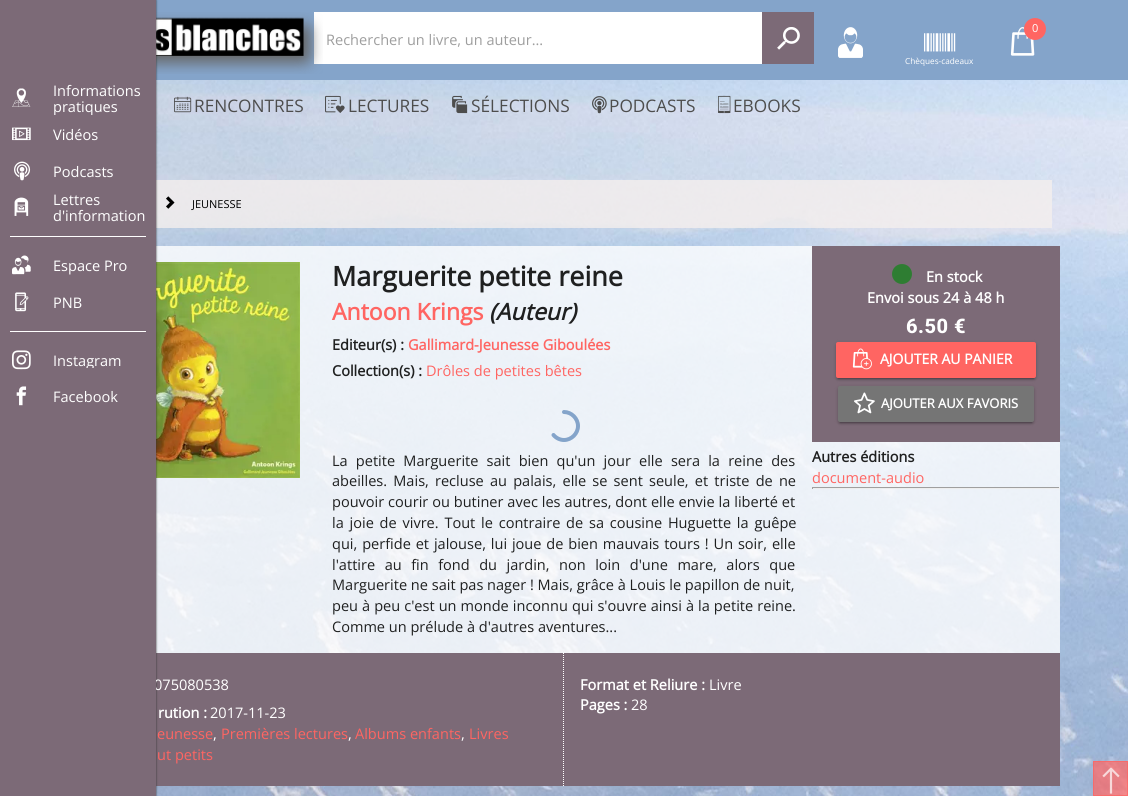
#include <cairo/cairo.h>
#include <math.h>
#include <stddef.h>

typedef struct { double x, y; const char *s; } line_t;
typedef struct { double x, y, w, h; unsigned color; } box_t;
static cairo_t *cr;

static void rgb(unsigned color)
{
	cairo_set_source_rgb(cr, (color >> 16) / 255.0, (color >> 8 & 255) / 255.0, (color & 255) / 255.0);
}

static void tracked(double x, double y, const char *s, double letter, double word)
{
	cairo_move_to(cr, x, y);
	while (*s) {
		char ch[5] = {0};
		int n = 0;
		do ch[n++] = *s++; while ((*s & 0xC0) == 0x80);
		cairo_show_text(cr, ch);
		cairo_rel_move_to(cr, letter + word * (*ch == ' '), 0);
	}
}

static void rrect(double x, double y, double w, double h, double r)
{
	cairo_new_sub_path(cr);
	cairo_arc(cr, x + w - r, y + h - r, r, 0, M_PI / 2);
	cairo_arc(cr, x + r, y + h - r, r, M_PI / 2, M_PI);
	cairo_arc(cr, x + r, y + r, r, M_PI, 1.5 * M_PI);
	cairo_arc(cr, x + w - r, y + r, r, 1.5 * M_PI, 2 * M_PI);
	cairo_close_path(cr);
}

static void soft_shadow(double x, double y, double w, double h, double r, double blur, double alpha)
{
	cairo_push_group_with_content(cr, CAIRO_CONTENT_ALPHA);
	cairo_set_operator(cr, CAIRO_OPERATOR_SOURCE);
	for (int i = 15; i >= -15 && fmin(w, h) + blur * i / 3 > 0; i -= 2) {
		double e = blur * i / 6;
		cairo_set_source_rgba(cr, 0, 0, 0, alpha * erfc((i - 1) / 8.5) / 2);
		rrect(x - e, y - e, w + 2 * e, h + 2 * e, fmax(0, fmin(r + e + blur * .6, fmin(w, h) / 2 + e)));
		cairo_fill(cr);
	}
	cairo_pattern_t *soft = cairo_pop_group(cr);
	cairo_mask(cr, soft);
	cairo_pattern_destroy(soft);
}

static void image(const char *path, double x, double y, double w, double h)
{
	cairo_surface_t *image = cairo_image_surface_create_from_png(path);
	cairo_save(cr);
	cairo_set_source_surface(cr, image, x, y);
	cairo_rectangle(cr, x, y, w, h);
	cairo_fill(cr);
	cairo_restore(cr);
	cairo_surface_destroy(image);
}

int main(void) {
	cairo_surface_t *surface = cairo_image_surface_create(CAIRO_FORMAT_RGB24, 1128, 796);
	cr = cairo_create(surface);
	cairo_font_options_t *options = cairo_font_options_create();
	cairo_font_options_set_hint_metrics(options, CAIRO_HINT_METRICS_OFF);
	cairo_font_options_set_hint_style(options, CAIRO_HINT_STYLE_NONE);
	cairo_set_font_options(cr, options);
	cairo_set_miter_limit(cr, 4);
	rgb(0xffffff);
	cairo_paint(cr);
	image("img/1.png", 156, 80, 972, 716);
	rgb(0x84a4ca);
	cairo_rectangle(cr, 156, 0, 972, 80);
	cairo_fill(cr);
	rgb(0xffffff);
	cairo_rectangle(cr, 314, 12, 448, 52);
	cairo_fill(cr);
	image("img/2.png", 156, 12, 167, 62);
	rgb(0x7c6a77);
	cairo_rectangle(cr, 762, 12, 52, 52);
	cairo_fill(cr);
	image("img/3.png", 777, 27, 23, 23);
	image("img/4.png", 838, 27, 25, 31);
	image("img/5.png", 1010, 27, 25, 29);
	rgb(0xff6562);
	cairo_arc(cr, 1035, 29, 11, 0, 2 * M_PI);
	cairo_fill(cr);
	image("img/6.png", 924, 33, 32, 19);
	image("img/7.png", 174, 96, 18, 17);
	image("img/8.png", 325, 95, 20, 18);
	image("img/9.png", 452, 95, 16, 19);
	image("img/10.png", 592, 96, 15, 18);
	image("img/11.png", 718, 95, 13, 19);
	cairo_set_source_rgba(cr, 0.953, 0.937, 0.929, 0.8);
	cairo_rectangle(cr, 156, 180, 896, 48);
	cairo_fill(cr);
	cairo_set_source_rgba(cr, 1, 1, 1, 0.8);
	cairo_rectangle(cr, 156, 246, 904, 407);
	cairo_fill(cr);
	image("img/21.png", 156, 262, 144, 216);
	rgb(0x7c6a77);
	cairo_rectangle(cr, 156, 653, 904, 133);
	cairo_fill(cr);
	rgb(0x333333);
	soft_shadow(0, 0, 156, 796, 0, 1, 1);
	image("img/20.png", 166, 196, 9, 13);
	cairo_new_path(cr);
	cairo_move_to(cr, 564, 412);
	cairo_curve_to(cr, 571.5, 412, 578, 418.5, 578, 426);
	cairo_curve_to(cr, 578, 433.5, 571.5, 440, 564, 440);
	cairo_curve_to(cr, 560, 440, 556, 438, 553.5, 435);
	rgb(0x84a4ca);
	cairo_set_line_width(cr, 4);
	cairo_set_line_cap(cr, CAIRO_LINE_CAP_ROUND);
	cairo_stroke(cr);
	rgb(0x7c6a77);
	cairo_rectangle(cr, 812, 246, 248, 196);
	cairo_fill(cr);
	image("img/22.png", 892, 264, 20, 20);
	rgb(0x000000);
	soft_shadow(836, 343, 200, 36, 2, 2.5, 0.12);
	soft_shadow(836, 344, 200, 36, 2, 1, 0.14);
	soft_shadow(838, 347, 196, 32, 0, 0.5, 0.2);
	rgb(0xff6562);
	rrect(836, 342, 200, 36, 2);
	cairo_fill(cr);
	image("img/23.png", 852, 348, 20, 22);
	rgb(0x000000);
	soft_shadow(838, 387, 196, 36, 2, 2.5, 0.12);
	soft_shadow(838, 388, 196, 36, 2, 1, 0.14);
	soft_shadow(840, 391, 192, 32, 0, 0.5, 0.2);
	rgb(0x757575);
	rrect(838, 386, 196, 36, 2);
	cairo_fill(cr);
	image("img/24.png", 854, 392, 21, 22);
	{
		static const box_t items[] = {
			{812, 487, 248, 1, 0x9f9f9f},
			{1059, 487, 1, 2, 0xeeeeee},
			{812, 488, 248, 1, 0xeeeeee},
			{812, 487, 1, 2, 0x9f9f9f},
		};
		for (size_t i = 0; i < sizeof items / sizeof *items; i++) {
			rgb(items[i].color);
			cairo_rectangle(cr, items[i].x, items[i].y, items[i].w, items[i].h);
			cairo_fill(cr);
		}
	}
	cairo_new_path(cr);
	cairo_move_to(cr, 563.5, 653);
	cairo_line_to(cr, 563.5, 786);
	rgb(0xffffff);
	cairo_set_line_width(cr, 1);
	cairo_set_line_cap(cr, CAIRO_LINE_CAP_BUTT);
	cairo_set_dash(cr, (double[]){1, 1}, 2, 0);
	cairo_stroke(cr);
	cairo_set_source_rgba(cr, 1, 0.396, 0.384, 0.7);
	cairo_rectangle(cr, 1093, 761, 35, 35);
	cairo_fill(cr);
	cairo_rectangle(cr, 1093.5, 761.5, 34, 34);
	cairo_set_dash(cr, NULL, 0, 0);
	cairo_stroke(cr);
	image("img/25.png", 1102, 767, 18, 27);
	cairo_select_font_face(cr, "Open Sans", CAIRO_FONT_SLANT_NORMAL, CAIRO_FONT_WEIGHT_NORMAL);
	cairo_set_font_size(cr, 14.55);
	rgb(0x9e9e9e);
	cairo_move_to(cr, 326, 45);
	cairo_show_text(cr, "Rechercher un livre, un auteur...");
	cairo_set_font_size(cr, 11);
	rgb(0xffffff);
	cairo_move_to(cr, 1032, 32);
	cairo_show_text(cr, "0");
	cairo_set_font_size(cr, 8.25);
	cairo_move_to(cr, 905, 64);
	cairo_show_text(cr, "Chèques-cadeaux");
	cairo_set_font_size(cr, 17.25);
	rgb(0x4d4d4d);
	{
		static const line_t items[] = {
			{194, 112, "RENCONTRES"},
			{348, 112, "LECTURES"},
			{471, 112, "SÉLECTIONS"},
			{609, 112, "PODCASTS"},
			{733, 112, "EBOOKS"},
		};
		for (size_t i = 0; i < sizeof items / sizeof *items; i++) {
			cairo_move_to(cr, items[i].x, items[i].y);
			cairo_show_text(cr, items[i].s);
		}
	}
	cairo_set_font_size(cr, 11);
	rgb(0x000000);
	cairo_move_to(cr, 192, 208);
	cairo_show_text(cr, "JEUNESSE");
	cairo_select_font_face(cr, "Open Sans", CAIRO_FONT_SLANT_NORMAL, CAIRO_FONT_WEIGHT_BOLD);
	cairo_set_font_size(cr, 27);
	rgb(0x1f2020);
	cairo_move_to(cr, 332, 286);
	cairo_show_text(cr, "Marguerite petite reine");
	cairo_set_font_size(cr, 23);
	rgb(0xff6562);
	cairo_move_to(cr, 332, 320);
	cairo_show_text(cr, "Antoon Krings");
	cairo_select_font_face(cr, "Open Sans", CAIRO_FONT_SLANT_ITALIC, CAIRO_FONT_WEIGHT_BOLD);
	rgb(0x1f2020);
	cairo_move_to(cr, 489, 320);
	cairo_show_text(cr, "(Auteur)");
	cairo_select_font_face(cr, "Open Sans", CAIRO_FONT_SLANT_NORMAL, CAIRO_FONT_WEIGHT_BOLD);
	cairo_set_font_size(cr, 14.55);
	cairo_move_to(cr, 332, 350);
	cairo_show_text(cr, "Editeur(s) :");
	rgb(0xff6562);
	cairo_move_to(cr, 408, 350);
	cairo_show_text(cr, "Gallimard-Jeunesse Giboulées");
	rgb(0x1f2020);
	cairo_move_to(cr, 332, 376);
	cairo_show_text(cr, "Collection(s) :");
	cairo_select_font_face(cr, "Open Sans", CAIRO_FONT_SLANT_NORMAL, CAIRO_FONT_WEIGHT_NORMAL);
	rgb(0xff6562);
	cairo_move_to(cr, 426, 376);
	cairo_show_text(cr, "Drôles de petites bêtes");
	rgb(0x1f2020);
	tracked(332, 466, "La petite Marguerite sait bien qu'un jour elle sera la reine des", 0, 4.4);
	tracked(332, 486, "abeilles. Mais, recluse au palais, elle se sent seule, et triste de ne", 0, 2.4);
	tracked(332, 507, "pouvoir courir ou butiner avec les autres, dont elle envie la liberté et", 0, 0.1);
	tracked(332, 528, "la joie de vivre. Tout le contraire de sa cousine Huguette la guêpe", 0, 2);
	tracked(332, 549, "qui, perfide et jalouse, lui joue de bien mauvais tours ! Un soir, elle", 0, 1.1);
	tracked(332, 570, "l'attire au fin fond du jardin, non loin d'une mare, alors que", 0, 5.75);
	cairo_move_to(cr, 332, 590);
	cairo_show_text(cr, "Marguerite ne sait pas nager ! Mais, grâce à Louis le papillon de nuit,");
	tracked(332, 611, "peu à peu c'est un monde inconnu qui s'ouvre ainsi à la petite reine.", 0, 0.25);
	cairo_move_to(cr, 332, 632);
	cairo_show_text(cr, "Comme un prélude à d'autres aventures...");
	cairo_select_font_face(cr, "Open Sans", CAIRO_FONT_SLANT_NORMAL, CAIRO_FONT_WEIGHT_BOLD);
	rgb(0xffffff);
	cairo_move_to(cr, 926, 282);
	cairo_show_text(cr, "En stock");
	cairo_move_to(cr, 867, 303);
	cairo_show_text(cr, "Envoi sous 24 à 48 h");
	cairo_select_font_face(cr, "Roboto ExtraBold", CAIRO_FONT_SLANT_NORMAL, CAIRO_FONT_WEIGHT_NORMAL);
	cairo_set_font_size(cr, 20);
	tracked(906, 333, "6.50 €", 0.5, 0);
	cairo_select_font_face(cr, "Open Sans", CAIRO_FONT_SLANT_NORMAL, CAIRO_FONT_WEIGHT_BOLD);
	cairo_set_font_size(cr, 14);
	cairo_move_to(cr, 880, 364);
	cairo_show_text(cr, "AJOUTER AU PANIER");
	cairo_set_font_size(cr, 13);
	cairo_move_to(cr, 881, 408);
	cairo_show_text(cr, "AJOUTER AUX FAVORIS");
	cairo_set_font_size(cr, 14.55);
	rgb(0x1f2020);
	cairo_move_to(cr, 812, 462);
	cairo_show_text(cr, "Autres éditions");
	cairo_select_font_face(cr, "Open Sans", CAIRO_FONT_SLANT_NORMAL, CAIRO_FONT_WEIGHT_NORMAL);
	rgb(0xff6562);
	cairo_move_to(cr, 812, 483);
	cairo_show_text(cr, "document-audio");
	rgb(0xffffff);
	cairo_move_to(cr, 154, 690);
	cairo_show_text(cr, "075080538");
	rgb(0x7c6a77);
	cairo_rectangle(cr, 0, 0, 156, 796);
	cairo_fill(cr);
	rgb(0xffffff);
	cairo_move_to(cr, 53, 402);
	cairo_show_text(cr, "Facebook");
	image("img/19.png", 16, 386, 11, 20);
	cairo_save(cr);
	cairo_rectangle(cr, 42, 352, 104, 16);
	cairo_clip(cr);
	cairo_move_to(cr, 53, 366);
	cairo_show_text(cr, "Instagram");
	cairo_restore(cr);
	image("img/18.png", 12, 350, 19, 20);
	cairo_move_to(cr, 53, 308);
	cairo_show_text(cr, "PNB");
	image("img/17.png", 15, 292, 14, 20);
	cairo_move_to(cr, 53, 271);
	cairo_show_text(cr, "Espace Pro");
	image("img/16.png", 12, 255, 19, 20);
	cairo_move_to(cr, 53, 221);
	cairo_show_text(cr, "d'information");
	cairo_move_to(cr, 53, 205);
	cairo_show_text(cr, "Lettres");
	image("img/15.png", 14, 197, 15, 19);
	cairo_move_to(cr, 53, 177);
	cairo_show_text(cr, "Podcasts");
	image("img/14.png", 14, 161, 17, 20);
	cairo_move_to(cr, 53, 140);
	cairo_show_text(cr, "Vidéos");
	image("img/13.png", 12, 127, 19, 14);
	cairo_save(cr);
	cairo_rectangle(cr, 42, 82, 104, 33);
	cairo_clip(cr);
	cairo_move_to(cr, 53, 112);
	cairo_show_text(cr, "pratiques");
	cairo_restore(cr);
	cairo_move_to(cr, 53, 96);
	cairo_show_text(cr, "Informations");
	image("img/12.png", 12, 88, 19, 19);
	cairo_rectangle(cr, 10, 331, 136, 1);
	cairo_fill(cr);
	cairo_rectangle(cr, 10, 236, 136, 1);
	cairo_fill(cr);
	cairo_select_font_face(cr, "Open Sans", CAIRO_FONT_SLANT_NORMAL, CAIRO_FONT_WEIGHT_BOLD);
	cairo_move_to(cr, 158, 718);
	cairo_show_text(cr, "rution :");
	cairo_select_font_face(cr, "Open Sans", CAIRO_FONT_SLANT_NORMAL, CAIRO_FONT_WEIGHT_NORMAL);
	cairo_move_to(cr, 210, 718);
	cairo_show_text(cr, "2017-11-23");
	rgb(0xff6562);
	cairo_move_to(cr, 157, 739);
	cairo_show_text(cr, "eunesse");
	rgb(0xffffff);
	cairo_move_to(cr, 213, 739);
	cairo_show_text(cr, ",");
	rgb(0xff6562);
	cairo_move_to(cr, 221, 739);
	cairo_show_text(cr, "Premières lectures");
	rgb(0xffffff);
	cairo_move_to(cr, 348, 739);
	cairo_show_text(cr, ",");
	rgb(0xff6562);
	cairo_move_to(cr, 355, 739);
	cairo_show_text(cr, "Albums enfants");
	rgb(0xffffff);
	cairo_move_to(cr, 461, 739);
	cairo_show_text(cr, ",");
	rgb(0xff6562);
	cairo_move_to(cr, 469, 739);
	cairo_show_text(cr, "Livres");
	cairo_move_to(cr, 157, 760);
	cairo_show_text(cr, "ut petits");
	cairo_select_font_face(cr, "Open Sans", CAIRO_FONT_SLANT_NORMAL, CAIRO_FONT_WEIGHT_BOLD);
	rgb(0xffffff);
	cairo_move_to(cr, 580, 690);
	cairo_show_text(cr, "Format et Reliure :");
	cairo_select_font_face(cr, "Open Sans", CAIRO_FONT_SLANT_NORMAL, CAIRO_FONT_WEIGHT_NORMAL);
	cairo_move_to(cr, 709, 690);
	cairo_show_text(cr, "Livre");
	cairo_select_font_face(cr, "Open Sans", CAIRO_FONT_SLANT_NORMAL, CAIRO_FONT_WEIGHT_BOLD);
	cairo_move_to(cr, 580, 710);
	cairo_show_text(cr, "Pages :");
	cairo_select_font_face(cr, "Open Sans", CAIRO_FONT_SLANT_NORMAL, CAIRO_FONT_WEIGHT_NORMAL);
	cairo_move_to(cr, 631, 710);
	cairo_show_text(cr, "28");
	cairo_surface_write_to_png(surface, "page.png");
	cairo_font_options_destroy(options);
	cairo_destroy(cr);
	cairo_surface_destroy(surface);
	return 0;
}
